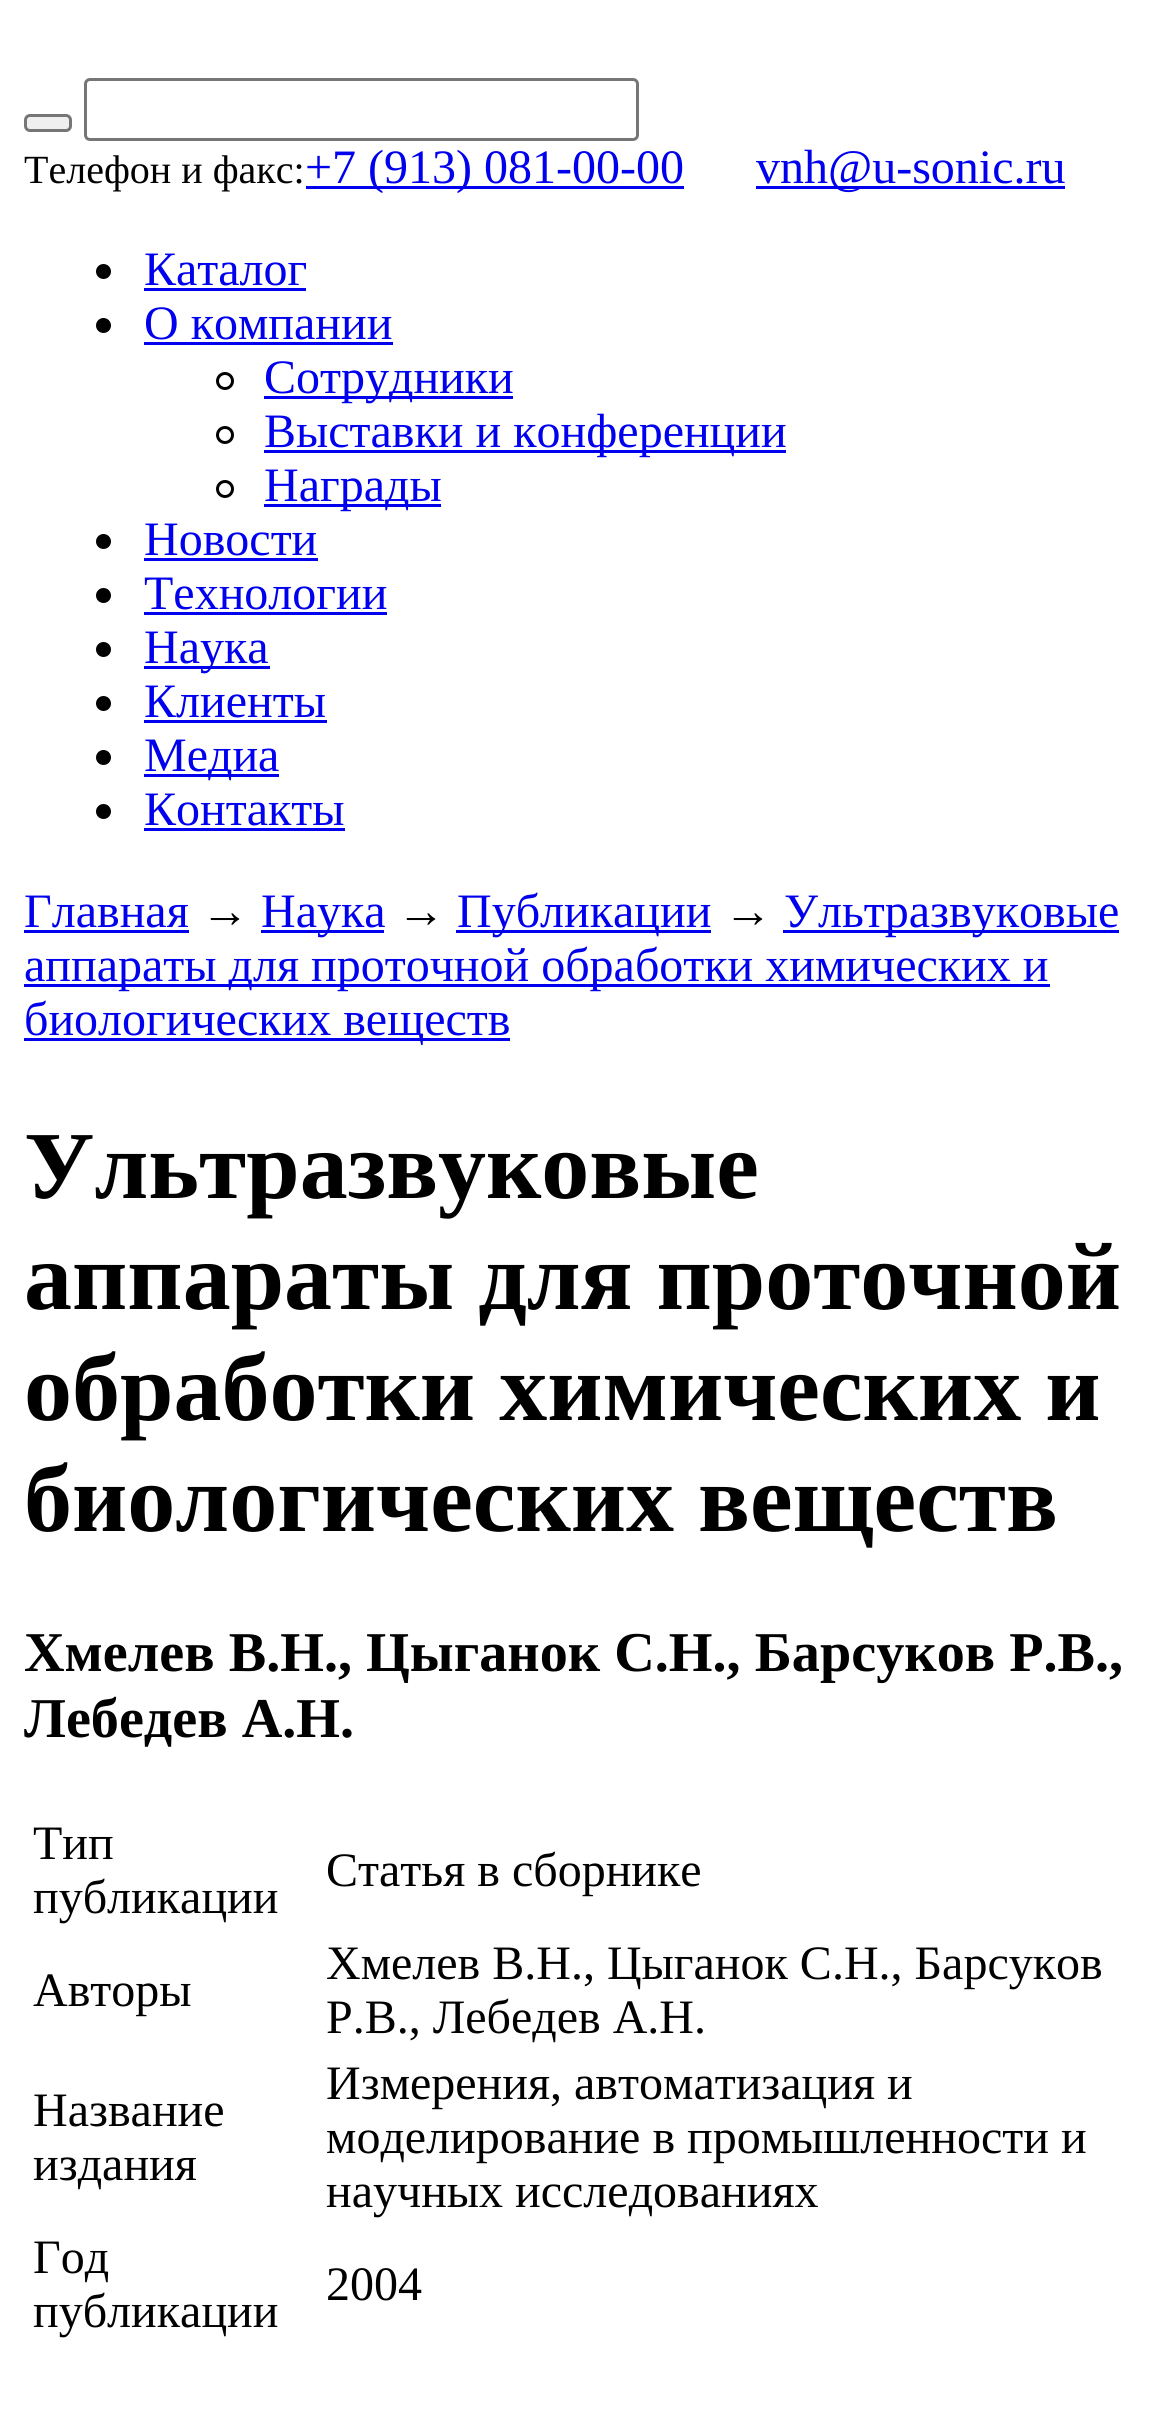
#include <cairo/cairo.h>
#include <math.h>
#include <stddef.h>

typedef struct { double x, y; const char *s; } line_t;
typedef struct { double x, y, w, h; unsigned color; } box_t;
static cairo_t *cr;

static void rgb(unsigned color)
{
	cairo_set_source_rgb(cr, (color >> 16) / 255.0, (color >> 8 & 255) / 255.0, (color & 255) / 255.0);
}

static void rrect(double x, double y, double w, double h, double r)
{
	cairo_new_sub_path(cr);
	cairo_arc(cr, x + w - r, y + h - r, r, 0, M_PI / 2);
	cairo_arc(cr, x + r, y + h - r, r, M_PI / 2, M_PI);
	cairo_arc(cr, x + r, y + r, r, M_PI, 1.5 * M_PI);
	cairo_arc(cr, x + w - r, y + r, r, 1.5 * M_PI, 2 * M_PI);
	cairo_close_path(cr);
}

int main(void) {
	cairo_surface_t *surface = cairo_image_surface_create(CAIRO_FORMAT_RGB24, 1159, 2421);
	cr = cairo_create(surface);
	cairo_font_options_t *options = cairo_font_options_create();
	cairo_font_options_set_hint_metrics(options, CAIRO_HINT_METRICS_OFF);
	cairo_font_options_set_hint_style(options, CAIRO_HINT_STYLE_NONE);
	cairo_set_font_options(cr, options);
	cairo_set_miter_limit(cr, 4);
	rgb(0xffffff);
	cairo_paint(cr);
	rgb(0xefefef);
	rrect(25.5, 115.5, 45, 15, 4.5);
	cairo_fill_preserve(cr);
	rgb(0x767676);
	cairo_set_line_width(cr, 3);
	cairo_stroke(cr);
	rrect(85.5, 79.5, 552, 60, 4.5);
	cairo_stroke(cr);
	rgb(0x0000ee);
	cairo_rectangle(cr, 306, 186, 378, 3);
	cairo_fill(cr);
	cairo_rectangle(cr, 756, 186, 309, 3);
	cairo_fill(cr);
	rgb(0x000000);
	cairo_arc(cr, 103.5, 271.5, 7.5, 0, 2 * M_PI);
	cairo_fill(cr);
	rgb(0x0000ee);
	cairo_rectangle(cr, 144, 288, 162, 3);
	cairo_fill(cr);
	rgb(0x000000);
	cairo_arc(cr, 103.5, 325.5, 7.5, 0, 2 * M_PI);
	cairo_fill(cr);
	rgb(0x0000ee);
	cairo_rectangle(cr, 144, 342, 249, 3);
	cairo_fill(cr);
	cairo_arc(cr, 225, 381, 7.5, 0, 2 * M_PI);
	rgb(0x000000);
	cairo_stroke(cr);
	rgb(0x0000ee);
	cairo_rectangle(cr, 264, 396, 249, 3);
	cairo_fill(cr);
	cairo_arc(cr, 225, 435, 7.5, 0, 2 * M_PI);
	rgb(0x000000);
	cairo_stroke(cr);
	rgb(0x0000ee);
	cairo_rectangle(cr, 264, 450, 522, 3);
	cairo_fill(cr);
	cairo_arc(cr, 225, 489, 7.5, 0, 2 * M_PI);
	rgb(0x000000);
	cairo_stroke(cr);
	rgb(0x0000ee);
	cairo_rectangle(cr, 264, 504, 177, 3);
	cairo_fill(cr);
	rgb(0x000000);
	cairo_arc(cr, 103.5, 541.5, 7.5, 0, 2 * M_PI);
	cairo_fill(cr);
	rgb(0x0000ee);
	cairo_rectangle(cr, 144, 558, 174, 3);
	cairo_fill(cr);
	rgb(0x000000);
	cairo_arc(cr, 103.5, 595.5, 7.5, 0, 2 * M_PI);
	cairo_fill(cr);
	rgb(0x0000ee);
	cairo_rectangle(cr, 144, 612, 243, 3);
	cairo_fill(cr);
	rgb(0x000000);
	cairo_arc(cr, 103.5, 649.5, 7.5, 0, 2 * M_PI);
	cairo_fill(cr);
	rgb(0x0000ee);
	cairo_rectangle(cr, 144, 666, 126, 3);
	cairo_fill(cr);
	rgb(0x000000);
	cairo_arc(cr, 103.5, 703.5, 7.5, 0, 2 * M_PI);
	cairo_fill(cr);
	rgb(0x0000ee);
	cairo_rectangle(cr, 144, 720, 183, 3);
	cairo_fill(cr);
	rgb(0x000000);
	cairo_arc(cr, 103.5, 757.5, 7.5, 0, 2 * M_PI);
	cairo_fill(cr);
	rgb(0x0000ee);
	cairo_rectangle(cr, 144, 774, 135, 3);
	cairo_fill(cr);
	rgb(0x000000);
	cairo_arc(cr, 103.5, 811.5, 7.5, 0, 2 * M_PI);
	cairo_fill(cr);
	{
		static const box_t items[] = {
			{144, 828, 201, 3, 0x0000ee},
			{24, 930, 165, 3, 0x0000ee},
			{261, 930, 123, 3, 0x0000ee},
			{456, 930, 255, 3, 0x0000ee},
			{783, 930, 336, 3, 0x0000ee},
			{24, 984, 1026, 3, 0x0000ee},
			{24, 1038, 486, 3, 0x0000ee},
		};
		for (size_t i = 0; i < sizeof items / sizeof *items; i++) {
			rgb(items[i].color);
			cairo_rectangle(cr, items[i].x, items[i].y, items[i].w, items[i].h);
			cairo_fill(cr);
		}
	}
	cairo_select_font_face(cr, "Liberation Serif", CAIRO_FONT_SLANT_NORMAL, CAIRO_FONT_WEIGHT_NORMAL);
	cairo_set_font_size(cr, 40);
	rgb(0x000000);
	cairo_move_to(cr, 24, 183);
	cairo_show_text(cr, "Телефон и факс:");
	cairo_set_font_size(cr, 48);
	rgb(0x0000ee);
	{
		static const line_t items[] = {
			{305, 183, "+7 (913) 081-00-00"},
			{756, 183, "vnh@u-sonic.ru"},
			{144, 285, "Каталог"},
			{144, 339, "О компании"},
			{264, 393, "Сотрудники"},
			{264, 447, "Выставки и конференции"},
			{264, 501, "Награды"},
			{144, 555, "Новости"},
			{144, 609, "Технологии"},
			{144, 663, "Наука"},
			{144, 717, "Клиенты"},
			{144, 771, "Медиа"},
			{144, 825, "Контакты"},
			{24, 927, "Главная"},
		};
		for (size_t i = 0; i < sizeof items / sizeof *items; i++) {
			cairo_move_to(cr, items[i].x, items[i].y);
			cairo_show_text(cr, items[i].s);
		}
	}
	rgb(0x000000);
	cairo_move_to(cr, 201, 927);
	cairo_show_text(cr, "→");
	rgb(0x0000ee);
	cairo_move_to(cr, 261, 927);
	cairo_show_text(cr, "Наука");
	rgb(0x000000);
	cairo_move_to(cr, 397, 927);
	cairo_show_text(cr, "→");
	rgb(0x0000ee);
	cairo_move_to(cr, 457, 927);
	cairo_show_text(cr, "Публикации");
	rgb(0x000000);
	cairo_move_to(cr, 724, 927);
	cairo_show_text(cr, "→");
	rgb(0x0000ee);
	{
		static const line_t items[] = {
			{784, 927, "Ультразвуковые"},
			{24, 981, "аппараты для проточной обработки химических и"},
			{24, 1035, "биологических веществ"},
		};
		for (size_t i = 0; i < sizeof items / sizeof *items; i++) {
			cairo_move_to(cr, items[i].x, items[i].y);
			cairo_show_text(cr, items[i].s);
		}
	}
	cairo_select_font_face(cr, "Liberation Serif", CAIRO_FONT_SLANT_NORMAL, CAIRO_FONT_WEIGHT_BOLD);
	cairo_set_font_size(cr, 96);
	rgb(0x000000);
	{
		static const line_t items[] = {
			{24, 1198, "Ультразвуковые"},
			{24, 1309, "аппараты для проточной"},
			{24, 1420, "обработки химических и"},
			{24, 1531, "биологических веществ"},
		};
		for (size_t i = 0; i < sizeof items / sizeof *items; i++) {
			cairo_move_to(cr, items[i].x, items[i].y);
			cairo_show_text(cr, items[i].s);
		}
	}
	cairo_set_font_size(cr, 56.2);
	cairo_move_to(cr, 24, 1671);
	cairo_show_text(cr, "Хмелев В.Н., Цыганок С.Н., Барсуков Р.В.,");
	cairo_move_to(cr, 24, 1737);
	cairo_show_text(cr, "Лебедев А.Н.");
	cairo_select_font_face(cr, "Liberation Serif", CAIRO_FONT_SLANT_NORMAL, CAIRO_FONT_WEIGHT_NORMAL);
	cairo_set_font_size(cr, 48);
	{
		static const line_t items[] = {
			{33, 1859, "Тип"},
			{33, 1913, "публикации"},
			{326, 1886, "Статья в сборнике"},
			{33, 2006, "Авторы"},
			{326, 1979, "Хмелев В.Н., Цыганок С.Н., Барсуков"},
			{326, 2033, "Р.В., Лебедев А.Н."},
			{33, 2126, "Название"},
			{33, 2180, "издания"},
			{326, 2099, "Измерения, автоматизация и"},
			{326, 2153, "моделирование в промышленности и"},
			{326, 2207, "научных исследованиях"},
			{33, 2273, "Год"},
			{33, 2327, "публикации"},
			{326, 2300, "2004"},
		};
		for (size_t i = 0; i < sizeof items / sizeof *items; i++) {
			cairo_move_to(cr, items[i].x, items[i].y);
			cairo_show_text(cr, items[i].s);
		}
	}
	cairo_surface_write_to_png(surface, "page.png");
	cairo_font_options_destroy(options);
	cairo_destroy(cr);
	cairo_surface_destroy(surface);
	return 0;
}
